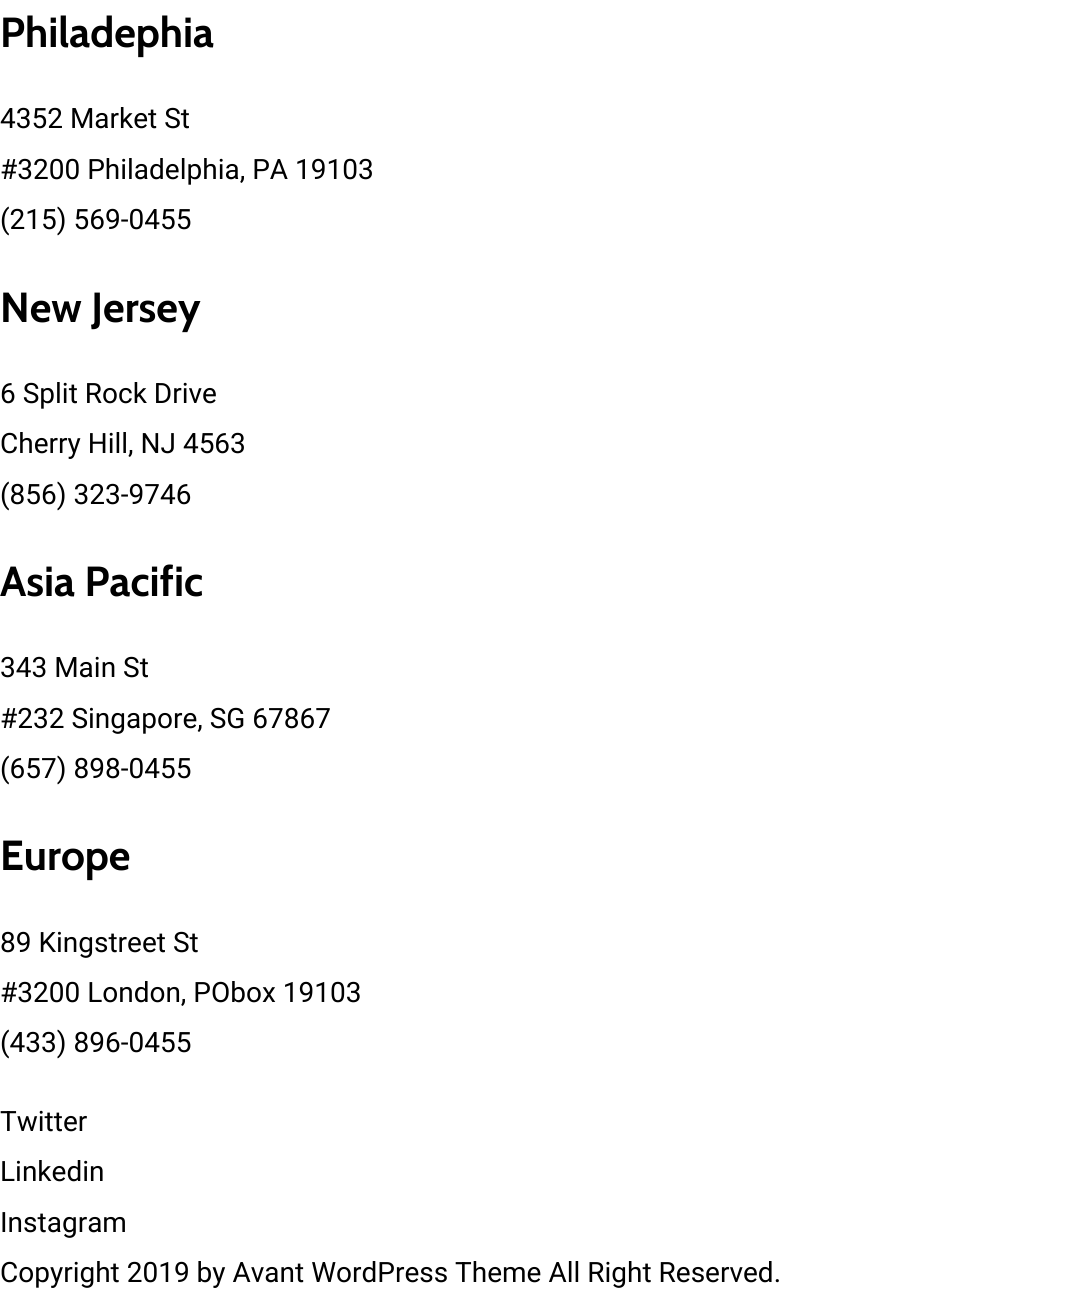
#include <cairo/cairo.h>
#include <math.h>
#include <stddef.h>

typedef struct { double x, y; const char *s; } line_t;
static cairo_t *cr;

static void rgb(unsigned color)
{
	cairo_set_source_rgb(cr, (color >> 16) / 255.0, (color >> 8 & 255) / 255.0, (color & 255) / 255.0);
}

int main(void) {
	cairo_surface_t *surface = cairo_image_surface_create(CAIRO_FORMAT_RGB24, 1075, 1305);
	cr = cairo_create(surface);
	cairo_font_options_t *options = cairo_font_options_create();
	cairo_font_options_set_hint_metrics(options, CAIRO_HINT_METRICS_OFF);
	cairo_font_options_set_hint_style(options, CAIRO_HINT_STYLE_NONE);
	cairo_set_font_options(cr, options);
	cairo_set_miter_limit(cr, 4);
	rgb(0xffffff);
	cairo_paint(cr);
	cairo_select_font_face(cr, "Cabin", CAIRO_FONT_SLANT_NORMAL, CAIRO_FONT_WEIGHT_BOLD);
	cairo_set_font_size(cr, 42);
	rgb(0x000000);
	cairo_move_to(cr, 0, 47);
	cairo_show_text(cr, "Philadephia");
	cairo_select_font_face(cr, "Roboto", CAIRO_FONT_SLANT_NORMAL, CAIRO_FONT_WEIGHT_NORMAL);
	cairo_set_font_size(cr, 28);
	{
		static const line_t items[] = {
			{0, 128, "4352 Market St"},
			{0, 179, "#3200 Philadelphia, PA 19103"},
			{0, 229, "(215) 569-0455"},
		};
		for (size_t i = 0; i < sizeof items / sizeof *items; i++) {
			cairo_move_to(cr, items[i].x, items[i].y);
			cairo_show_text(cr, items[i].s);
		}
	}
	cairo_select_font_face(cr, "Cabin", CAIRO_FONT_SLANT_NORMAL, CAIRO_FONT_WEIGHT_BOLD);
	cairo_set_font_size(cr, 42);
	cairo_move_to(cr, 0, 322);
	cairo_show_text(cr, "New Jersey");
	cairo_select_font_face(cr, "Roboto", CAIRO_FONT_SLANT_NORMAL, CAIRO_FONT_WEIGHT_NORMAL);
	cairo_set_font_size(cr, 28);
	{
		static const line_t items[] = {
			{0, 403, "6 Split Rock Drive"},
			{0, 453, "Cherry Hill, NJ 4563"},
			{0, 504, "(856) 323-9746"},
		};
		for (size_t i = 0; i < sizeof items / sizeof *items; i++) {
			cairo_move_to(cr, items[i].x, items[i].y);
			cairo_show_text(cr, items[i].s);
		}
	}
	cairo_select_font_face(cr, "Cabin", CAIRO_FONT_SLANT_NORMAL, CAIRO_FONT_WEIGHT_BOLD);
	cairo_set_font_size(cr, 42);
	cairo_move_to(cr, 0, 596);
	cairo_show_text(cr, "Asia Pacific");
	cairo_select_font_face(cr, "Roboto", CAIRO_FONT_SLANT_NORMAL, CAIRO_FONT_WEIGHT_NORMAL);
	cairo_set_font_size(cr, 28);
	{
		static const line_t items[] = {
			{0, 677, "343 Main St"},
			{0, 728, "#232 Singapore, SG 67867"},
			{0, 778, "(657) 898-0455"},
		};
		for (size_t i = 0; i < sizeof items / sizeof *items; i++) {
			cairo_move_to(cr, items[i].x, items[i].y);
			cairo_show_text(cr, items[i].s);
		}
	}
	cairo_select_font_face(cr, "Cabin", CAIRO_FONT_SLANT_NORMAL, CAIRO_FONT_WEIGHT_BOLD);
	cairo_set_font_size(cr, 42);
	cairo_move_to(cr, 0, 870);
	cairo_show_text(cr, "Europe");
	cairo_select_font_face(cr, "Roboto", CAIRO_FONT_SLANT_NORMAL, CAIRO_FONT_WEIGHT_NORMAL);
	cairo_set_font_size(cr, 28);
	{
		static const line_t items[] = {
			{0, 952, "89 Kingstreet St"},
			{0, 1002, "#3200 London, PObox 19103"},
			{0, 1052, "(433) 896-0455"},
			{0, 1131, "Twitter"},
			{0, 1181, "Linkedin"},
			{0, 1232, "Instagram"},
			{0, 1282, "Copyright 2019 by Avant WordPress Theme All Right Reserved."},
		};
		for (size_t i = 0; i < sizeof items / sizeof *items; i++) {
			cairo_move_to(cr, items[i].x, items[i].y);
			cairo_show_text(cr, items[i].s);
		}
	}
	cairo_surface_write_to_png(surface, "page.png");
	cairo_font_options_destroy(options);
	cairo_destroy(cr);
	cairo_surface_destroy(surface);
	return 0;
}
